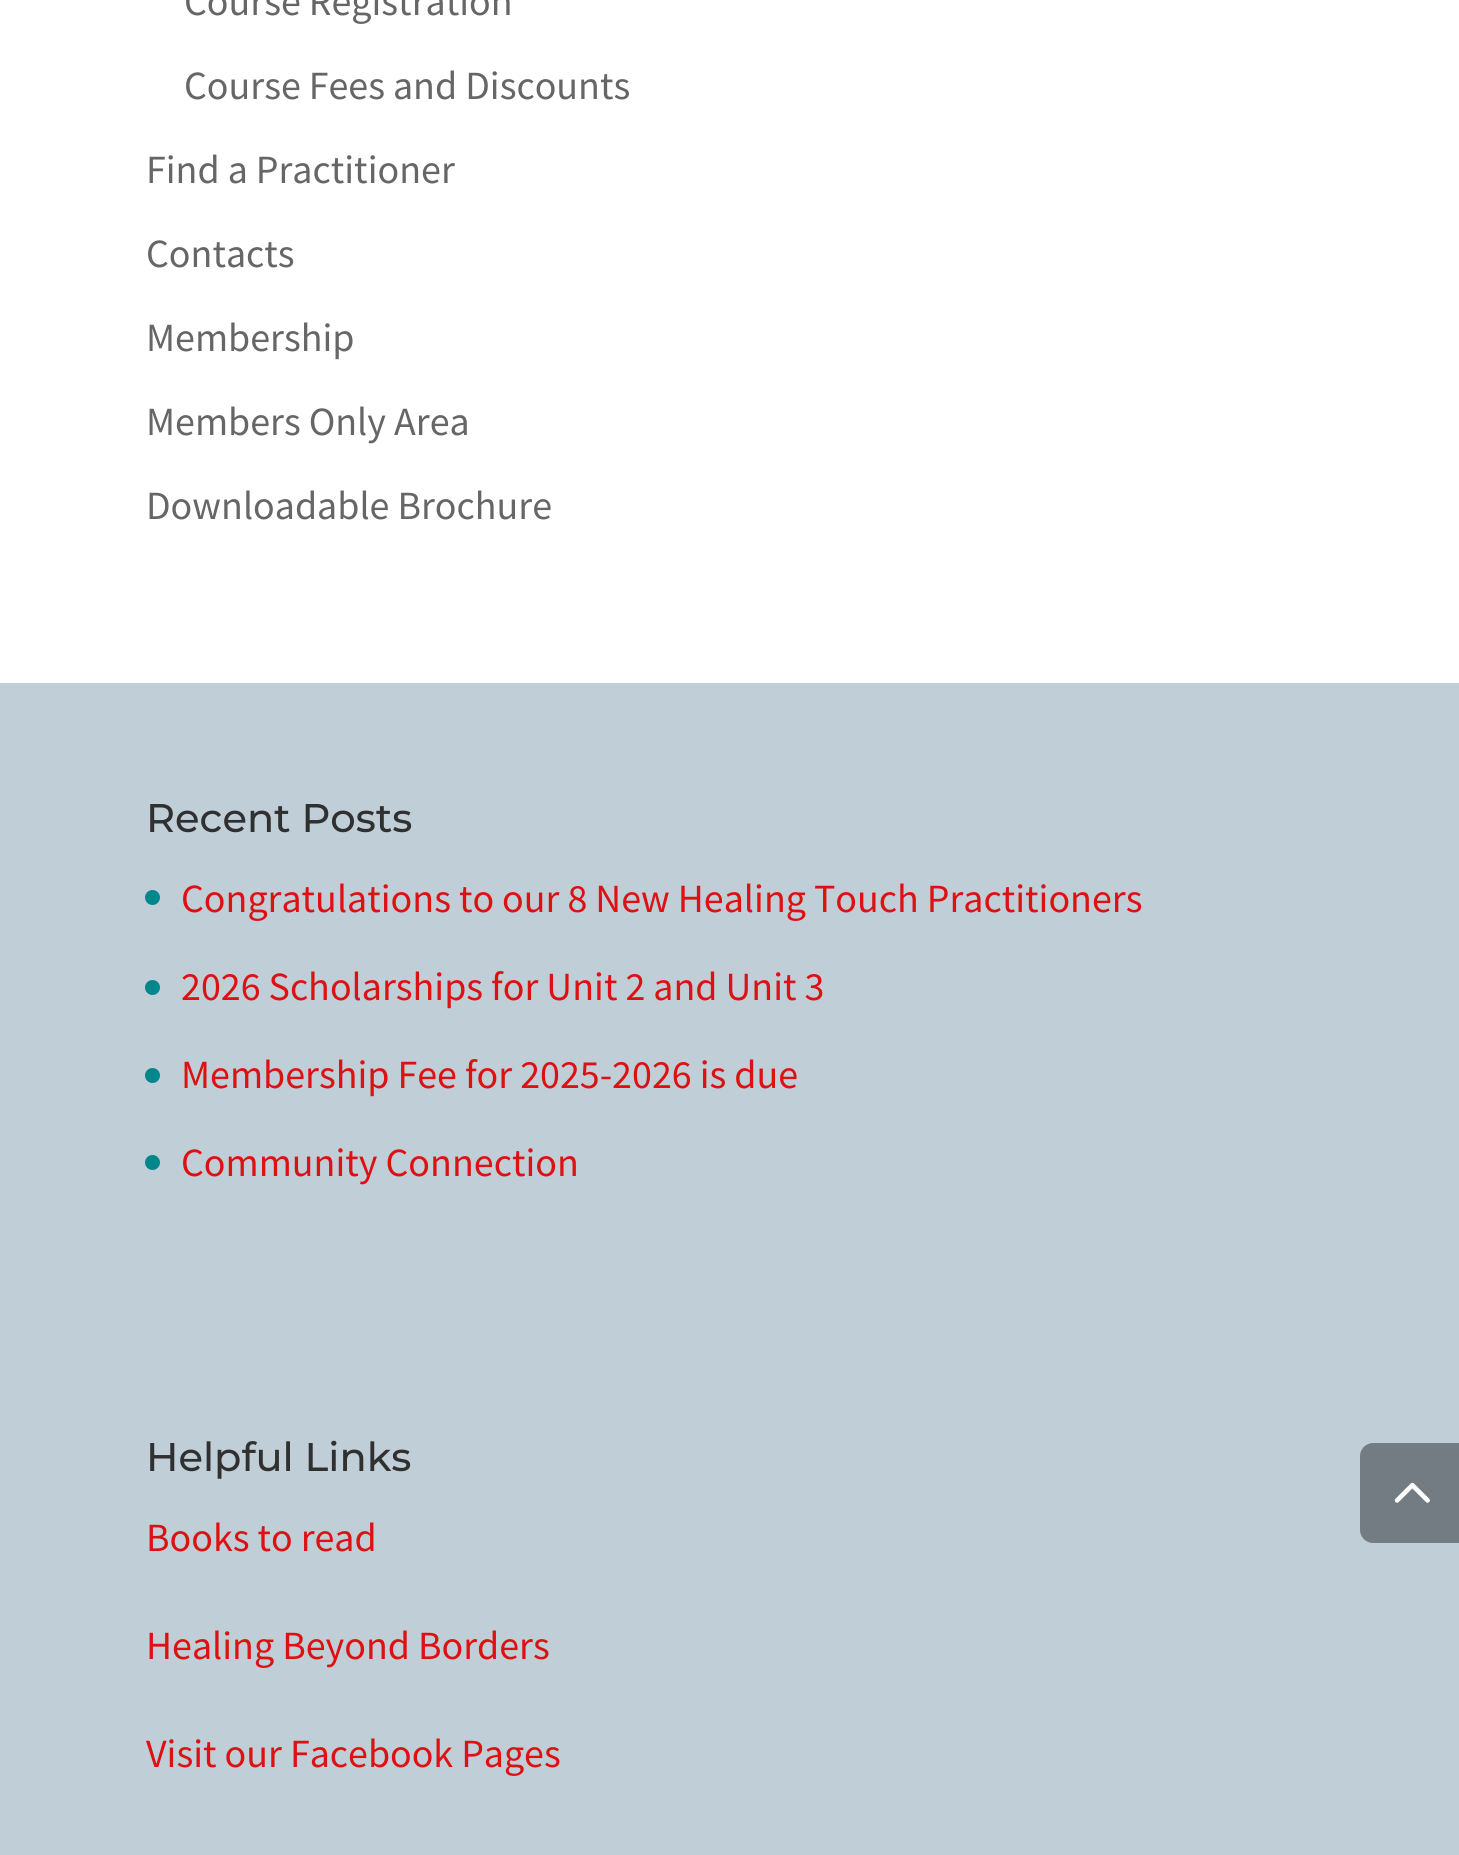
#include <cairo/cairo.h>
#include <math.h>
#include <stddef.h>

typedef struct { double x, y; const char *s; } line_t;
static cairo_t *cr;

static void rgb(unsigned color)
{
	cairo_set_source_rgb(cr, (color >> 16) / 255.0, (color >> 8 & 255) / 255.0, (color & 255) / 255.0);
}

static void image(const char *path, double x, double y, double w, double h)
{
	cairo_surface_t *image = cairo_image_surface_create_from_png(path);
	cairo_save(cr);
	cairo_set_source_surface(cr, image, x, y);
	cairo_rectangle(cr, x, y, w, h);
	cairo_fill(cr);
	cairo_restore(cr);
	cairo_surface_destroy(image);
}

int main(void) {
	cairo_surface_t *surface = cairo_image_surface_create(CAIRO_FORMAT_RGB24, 1459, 1855);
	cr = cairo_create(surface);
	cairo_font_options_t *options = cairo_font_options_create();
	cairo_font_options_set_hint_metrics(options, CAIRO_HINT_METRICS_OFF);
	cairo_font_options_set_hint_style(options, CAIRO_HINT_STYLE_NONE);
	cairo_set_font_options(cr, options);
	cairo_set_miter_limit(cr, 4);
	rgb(0xffffff);
	cairo_paint(cr);
	rgb(0xc0ced8);
	cairo_rectangle(cr, 0, 683, 1459, 1172);
	cairo_fill(cr);
	rgb(0x00878c);
	cairo_arc(cr, 152.5, 897.5, 7.5, 0, 2 * M_PI);
	cairo_fill(cr);
	cairo_arc(cr, 152.5, 987.5, 7.5, 0, 2 * M_PI);
	cairo_fill(cr);
	cairo_arc(cr, 152.5, 1075.5, 7.5, 0, 2 * M_PI);
	cairo_fill(cr);
	cairo_arc(cr, 152.5, 1162.5, 7.5, 0, 2 * M_PI);
	cairo_fill(cr);
	rgb(0x737c82);
	cairo_new_path(cr);
	cairo_move_to(cr, 1373, 1443);
	cairo_line_to(cr, 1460, 1443);
	cairo_line_to(cr, 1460, 1543);
	cairo_line_to(cr, 1373, 1543);
	cairo_curve_to(cr, 1366, 1543, 1360, 1537, 1360, 1530);
	cairo_line_to(cr, 1360, 1456);
	cairo_curve_to(cr, 1360, 1449, 1366, 1443, 1373, 1443);
	cairo_close_path(cr);
	cairo_fill(cr);
	image("img/1.png", 1394, 1482, 36, 21);
	cairo_select_font_face(cr, "Source Sans Pro", CAIRO_FONT_SLANT_NORMAL, CAIRO_FONT_WEIGHT_NORMAL);
	cairo_set_font_size(cr, 40);
	rgb(0x666666);
	{
		static const line_t items[] = {
			{184, 15, "Course Registration"},
			{184, 99, "Course Fees and Discounts"},
			{146, 183, "Find a Practitioner"},
			{146, 267, "Contacts"},
			{146, 351, "Membership"},
			{146, 435, "Members Only Area"},
			{146, 519, "Downloadable Brochure"},
		};
		for (size_t i = 0; i < sizeof items / sizeof *items; i++) {
			cairo_move_to(cr, items[i].x, items[i].y);
			cairo_show_text(cr, items[i].s);
		}
	}
	cairo_select_font_face(cr, "Montserrat Medium", CAIRO_FONT_SLANT_NORMAL, CAIRO_FONT_WEIGHT_NORMAL);
	rgb(0x303030);
	cairo_move_to(cr, 146, 832);
	cairo_show_text(cr, "Recent Posts");
	cairo_select_font_face(cr, "Source Sans Pro", CAIRO_FONT_SLANT_NORMAL, CAIRO_FONT_WEIGHT_NORMAL);
	rgb(0xdd1111);
	{
		static const line_t items[] = {
			{181, 912, "Congratulations to our 8 New Healing Touch Practitioners"},
			{181, 1000, "2026 Scholarships for Unit 2 and Unit 3"},
			{181, 1088, "Membership Fee for 2025-2026 is due"},
			{181, 1176, "Community Connection"},
		};
		for (size_t i = 0; i < sizeof items / sizeof *items; i++) {
			cairo_move_to(cr, items[i].x, items[i].y);
			cairo_show_text(cr, items[i].s);
		}
	}
	cairo_select_font_face(cr, "Montserrat Medium", CAIRO_FONT_SLANT_NORMAL, CAIRO_FONT_WEIGHT_NORMAL);
	rgb(0x303030);
	cairo_move_to(cr, 146, 1471);
	cairo_show_text(cr, "Helpful Links");
	cairo_select_font_face(cr, "Source Sans Pro", CAIRO_FONT_SLANT_NORMAL, CAIRO_FONT_WEIGHT_NORMAL);
	rgb(0xdd1111);
	{
		static const line_t items[] = {
			{146, 1551, "Books to read"},
			{146, 1659, "Healing Beyond Borders"},
			{146, 1767, "Visit our Facebook Pages"},
		};
		for (size_t i = 0; i < sizeof items / sizeof *items; i++) {
			cairo_move_to(cr, items[i].x, items[i].y);
			cairo_show_text(cr, items[i].s);
		}
	}
	cairo_surface_write_to_png(surface, "page.png");
	cairo_font_options_destroy(options);
	cairo_destroy(cr);
	cairo_surface_destroy(surface);
	return 0;
}
